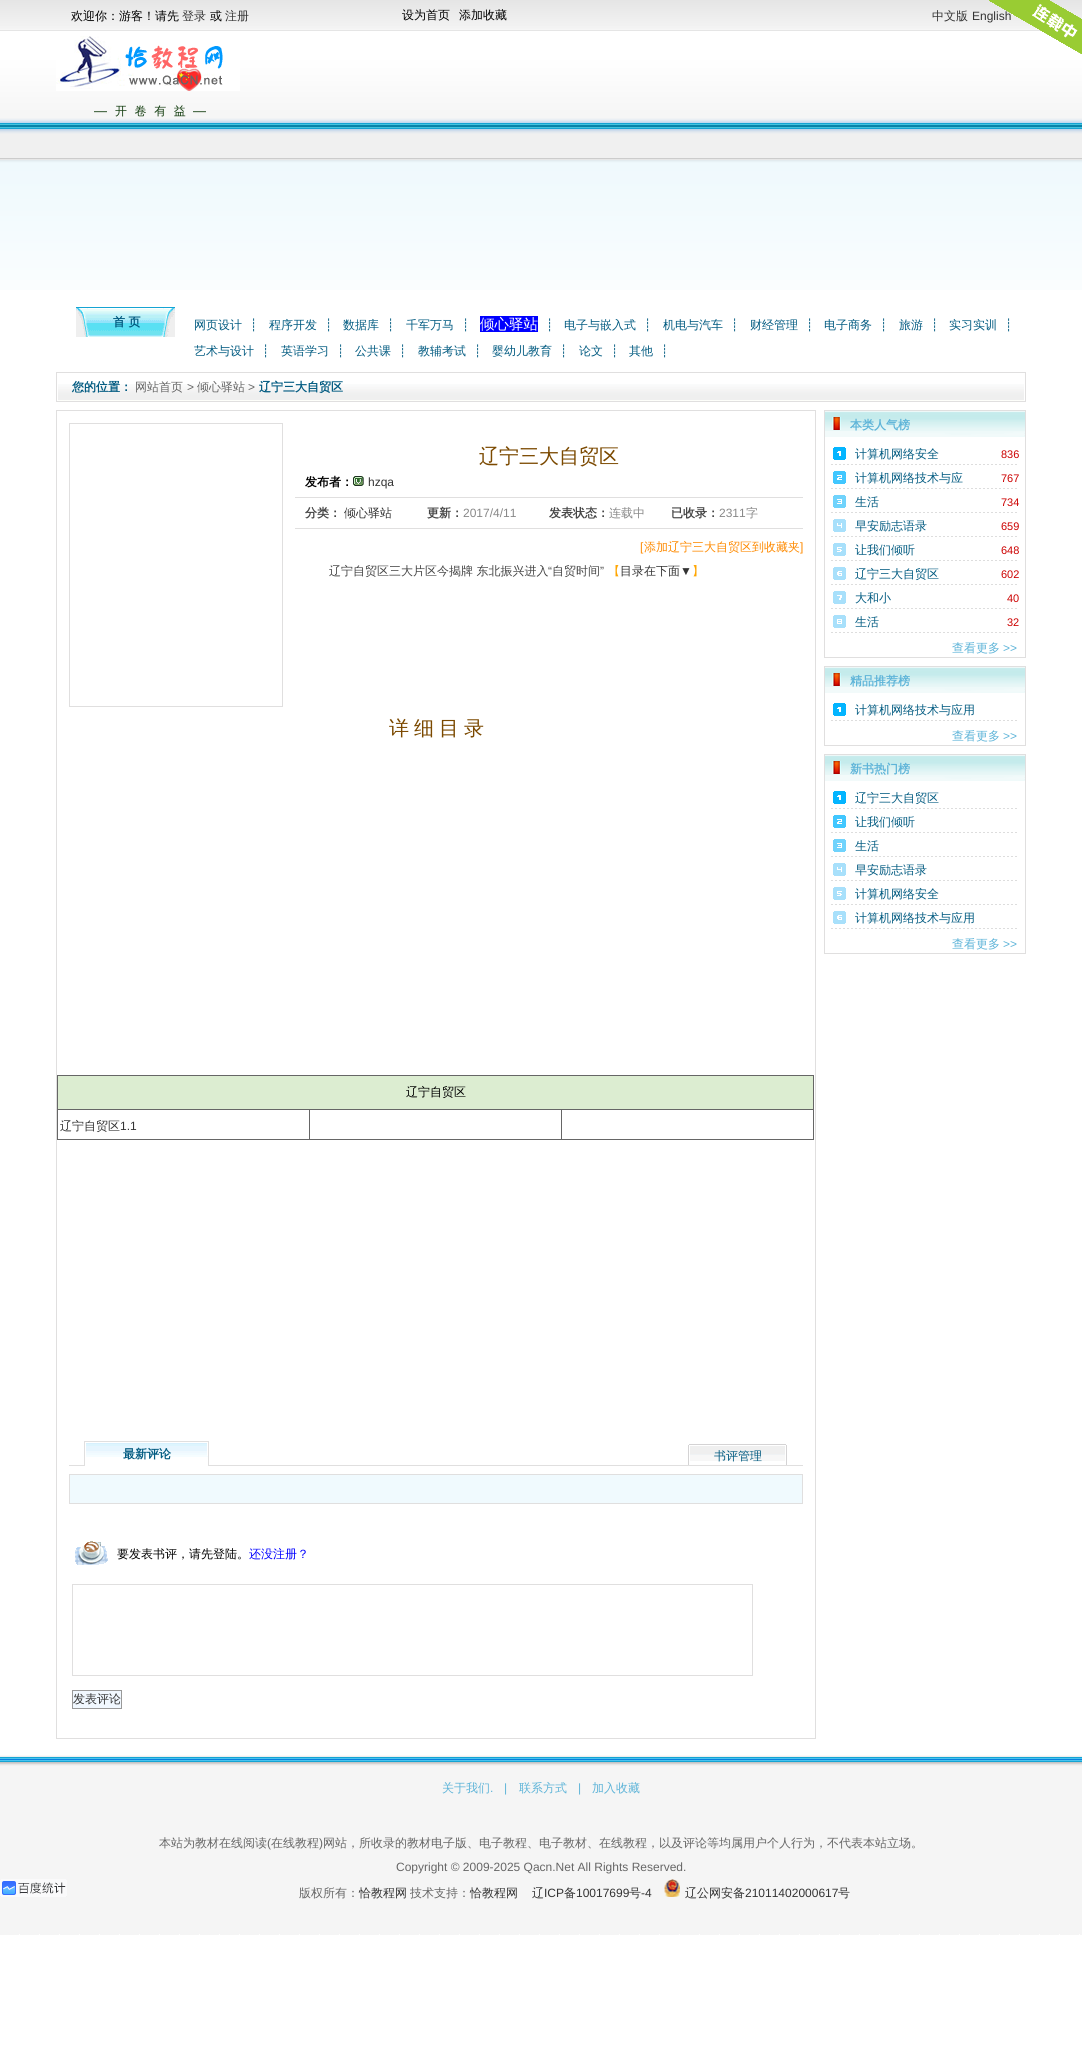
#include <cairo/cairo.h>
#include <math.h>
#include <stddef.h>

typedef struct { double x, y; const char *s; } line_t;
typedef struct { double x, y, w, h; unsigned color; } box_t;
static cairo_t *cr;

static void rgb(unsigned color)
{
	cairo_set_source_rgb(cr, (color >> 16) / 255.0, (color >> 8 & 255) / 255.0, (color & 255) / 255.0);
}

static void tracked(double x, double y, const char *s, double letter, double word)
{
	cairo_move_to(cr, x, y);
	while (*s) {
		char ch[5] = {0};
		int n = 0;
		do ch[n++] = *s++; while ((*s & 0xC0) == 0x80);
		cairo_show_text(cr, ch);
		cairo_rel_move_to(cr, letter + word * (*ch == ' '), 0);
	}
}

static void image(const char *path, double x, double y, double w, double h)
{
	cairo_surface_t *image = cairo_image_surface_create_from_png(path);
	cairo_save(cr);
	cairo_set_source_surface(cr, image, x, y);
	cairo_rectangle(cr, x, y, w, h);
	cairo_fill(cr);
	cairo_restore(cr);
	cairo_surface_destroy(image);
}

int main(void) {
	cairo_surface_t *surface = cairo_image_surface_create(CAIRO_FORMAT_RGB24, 1082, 2066);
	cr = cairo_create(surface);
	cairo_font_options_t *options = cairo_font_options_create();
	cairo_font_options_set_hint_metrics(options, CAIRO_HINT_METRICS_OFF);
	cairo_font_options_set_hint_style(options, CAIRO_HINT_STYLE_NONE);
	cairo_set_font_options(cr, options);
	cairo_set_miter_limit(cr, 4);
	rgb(0xffffff);
	cairo_paint(cr);
	image("img/1.png", 0, 0, 1082, 290);
	image("img/2.png", 56, 36, 184, 55);
	image("img/3.png", 76, 307, 99, 30);
	rgb(0x0000ff);
	cairo_rectangle(cr, 480, 316, 58, 16);
	cairo_fill(cr);
	cairo_rectangle(cr, 56.5, 372.5, 969, 29);
	rgb(0xe0dfdf);
	cairo_set_line_width(cr, 1);
	cairo_stroke(cr);
	image("img/4.png", 58, 384, 966, 17);
	cairo_rectangle(cr, 56.5, 410.5, 759, 1328);
	cairo_stroke(cr);
	cairo_rectangle(cr, 69.5, 423.5, 213, 283);
	cairo_stroke(cr);
	cairo_rectangle(cr, 295, 497, 508, 1);
	cairo_fill(cr);
	image("img/6.png", 353, 476, 11, 10);
	{
		static const box_t items[] = {
			{295, 528, 508, 1, 0xe0dfdf},
			{58, 1076, 755, 33, 0xdcedd1},
			{57, 1075, 757, 1, 0x666666},
			{813, 1075, 1, 34, 0x666666},
			{57, 1075, 1, 64, 0x666666},
			{58, 1109, 756, 1, 0x666666},
			{309, 1109, 1, 30, 0x666666},
			{561, 1109, 1, 30, 0x666666},
			{813, 1109, 1, 30, 0x666666},
			{57, 1139, 757, 1, 0x666666},
			{69, 1465, 734, 1, 0xe0dfdf},
		};
		for (size_t i = 0; i < sizeof items / sizeof *items; i++) {
			rgb(items[i].color);
			cairo_rectangle(cr, items[i].x, items[i].y, items[i].w, items[i].h);
			cairo_fill(cr);
		}
	}
	image("img/7.png", 84, 1441, 125, 25);
	image("img/8.png", 688, 1444, 99, 21);
	rgb(0xf0fafe);
	cairo_rectangle(cr, 69.5, 1474.5, 733, 29);
	cairo_fill_preserve(cr);
	rgb(0xe0dfdf);
	cairo_stroke(cr);
	image("img/9.png", 75, 1541, 33, 24);
	cairo_rectangle(cr, 72.5, 1584.5, 680, 91);
	cairo_stroke(cr);
	rgb(0xf1f8ff);
	cairo_rectangle(cr, 72.5, 1690.5, 49, 18);
	cairo_fill_preserve(cr);
	rgb(0x999999);
	cairo_stroke(cr);
	cairo_rectangle(cr, 824.5, 410.5, 201, 247);
	rgb(0xe0dfdf);
	cairo_stroke(cr);
	image("img/10.png", 825, 411, 200, 26);
	image("img/11.png", 833, 447, 13, 181);
	image("img/12.png", 831, 464, 186, 1);
	image("img/12.png", 831, 488, 186, 1);
	image("img/12.png", 831, 512, 186, 1);
	image("img/12.png", 831, 536, 186, 1);
	image("img/12.png", 831, 560, 186, 1);
	image("img/12.png", 831, 584, 186, 1);
	image("img/12.png", 831, 608, 186, 1);
	image("img/12.png", 831, 632, 186, 1);
	cairo_rectangle(cr, 824.5, 666.5, 201, 79);
	cairo_stroke(cr);
	image("img/10.png", 825, 667, 200, 26);
	image("img/13.png", 833, 703, 13, 13);
	image("img/12.png", 831, 720, 186, 1);
	cairo_rectangle(cr, 824.5, 754.5, 201, 199);
	cairo_stroke(cr);
	image("img/10.png", 825, 755, 200, 26);
	image("img/14.png", 833, 791, 13, 133);
	image("img/12.png", 831, 808, 186, 1);
	image("img/12.png", 831, 832, 186, 1);
	image("img/12.png", 831, 856, 186, 1);
	image("img/12.png", 831, 880, 186, 1);
	image("img/12.png", 831, 904, 186, 1);
	image("img/12.png", 831, 928, 186, 1);
	rgb(0xf5f5f5);
	cairo_rectangle(cr, 0, 1766, 1082, 169);
	cairo_fill(cr);
	image("img/15.png", 19, 1934, 1061, 1);
	image("img/16.png", 0, 1755, 1082, 11);
	image("img/17.png", 0, 1879, 67, 18);
	image("img/18.png", 664, 1879, 16, 18);
	cairo_select_font_face(cr, "WenQuanYi Zen Hei Medium", CAIRO_FONT_SLANT_NORMAL, CAIRO_FONT_WEIGHT_NORMAL);
	cairo_set_font_size(cr, 12);
	rgb(0x000000);
	cairo_move_to(cr, 71, 20);
	cairo_show_text(cr, "欢迎你：游客！请先");
	rgb(0x333333);
	cairo_move_to(cr, 182, 20);
	cairo_show_text(cr, "登录");
	rgb(0x000000);
	cairo_move_to(cr, 210, 20);
	cairo_show_text(cr, "或");
	rgb(0x333333);
	cairo_move_to(cr, 225, 20);
	cairo_show_text(cr, "注册");
	rgb(0x000000);
	cairo_move_to(cr, 402, 19);
	cairo_show_text(cr, "设为首页");
	cairo_move_to(cr, 459, 19);
	cairo_show_text(cr, "添加收藏");
	rgb(0x333333);
	cairo_move_to(cr, 932, 20);
	cairo_show_text(cr, "中文版");
	cairo_select_font_face(cr, "Liberation Sans", CAIRO_FONT_SLANT_NORMAL, CAIRO_FONT_WEIGHT_NORMAL);
	cairo_move_to(cr, 972, 20);
	cairo_show_text(cr, "English");
	cairo_set_font_size(cr, 13);
	rgb(0x153e11);
	tracked(94, 115, "—", 2, 0);
	cairo_select_font_face(cr, "WenQuanYi Zen Hei Medium", CAIRO_FONT_SLANT_NORMAL, CAIRO_FONT_WEIGHT_NORMAL);
	cairo_set_font_size(cr, 12);
	tracked(115, 115, "开 卷 有 益", 2, 0);
	cairo_select_font_face(cr, "Liberation Sans", CAIRO_FONT_SLANT_NORMAL, CAIRO_FONT_WEIGHT_NORMAL);
	cairo_set_font_size(cr, 13);
	tracked(193, 115, "—", 2, 0);
	cairo_select_font_face(cr, "WenQuanYi Zen Hei", CAIRO_FONT_SLANT_NORMAL, CAIRO_FONT_WEIGHT_BOLD);
	cairo_set_font_size(cr, 12);
	rgb(0x025b81);
	cairo_move_to(cr, 113, 326);
	cairo_show_text(cr, "首 页");
	cairo_select_font_face(cr, "WenQuanYi Zen Hei Medium", CAIRO_FONT_SLANT_NORMAL, CAIRO_FONT_WEIGHT_NORMAL);
	cairo_move_to(cr, 194, 329);
	cairo_show_text(cr, "网页设计");
	cairo_select_font_face(cr, "DejaVu Sans", CAIRO_FONT_SLANT_NORMAL, CAIRO_FONT_WEIGHT_NORMAL);
	cairo_move_to(cr, 250, 329);
	cairo_show_text(cr, "┊");
	cairo_select_font_face(cr, "WenQuanYi Zen Hei Medium", CAIRO_FONT_SLANT_NORMAL, CAIRO_FONT_WEIGHT_NORMAL);
	cairo_move_to(cr, 269, 329);
	cairo_show_text(cr, "程序开发");
	cairo_select_font_face(cr, "DejaVu Sans", CAIRO_FONT_SLANT_NORMAL, CAIRO_FONT_WEIGHT_NORMAL);
	cairo_move_to(cr, 325, 329);
	cairo_show_text(cr, "┊");
	cairo_select_font_face(cr, "WenQuanYi Zen Hei Medium", CAIRO_FONT_SLANT_NORMAL, CAIRO_FONT_WEIGHT_NORMAL);
	cairo_move_to(cr, 343, 329);
	cairo_show_text(cr, "数据库");
	cairo_select_font_face(cr, "DejaVu Sans", CAIRO_FONT_SLANT_NORMAL, CAIRO_FONT_WEIGHT_NORMAL);
	cairo_move_to(cr, 387, 329);
	cairo_show_text(cr, "┊");
	cairo_select_font_face(cr, "WenQuanYi Zen Hei Medium", CAIRO_FONT_SLANT_NORMAL, CAIRO_FONT_WEIGHT_NORMAL);
	cairo_move_to(cr, 406, 329);
	cairo_show_text(cr, "千军万马");
	cairo_select_font_face(cr, "DejaVu Sans", CAIRO_FONT_SLANT_NORMAL, CAIRO_FONT_WEIGHT_NORMAL);
	cairo_move_to(cr, 462, 329);
	cairo_show_text(cr, "┊");
	cairo_select_font_face(cr, "WenQuanYi Zen Hei Medium", CAIRO_FONT_SLANT_NORMAL, CAIRO_FONT_WEIGHT_NORMAL);
	cairo_set_font_size(cr, 14.5);
	rgb(0xffffff);
	cairo_move_to(cr, 480, 329);
	cairo_show_text(cr, "倾心驿站");
	cairo_select_font_face(cr, "DejaVu Sans", CAIRO_FONT_SLANT_NORMAL, CAIRO_FONT_WEIGHT_NORMAL);
	cairo_set_font_size(cr, 12);
	rgb(0x025b81);
	cairo_move_to(cr, 546, 329);
	cairo_show_text(cr, "┊");
	cairo_select_font_face(cr, "WenQuanYi Zen Hei Medium", CAIRO_FONT_SLANT_NORMAL, CAIRO_FONT_WEIGHT_NORMAL);
	cairo_move_to(cr, 564, 329);
	cairo_show_text(cr, "电子与嵌入式");
	cairo_select_font_face(cr, "DejaVu Sans", CAIRO_FONT_SLANT_NORMAL, CAIRO_FONT_WEIGHT_NORMAL);
	cairo_move_to(cr, 644, 329);
	cairo_show_text(cr, "┊");
	cairo_select_font_face(cr, "WenQuanYi Zen Hei Medium", CAIRO_FONT_SLANT_NORMAL, CAIRO_FONT_WEIGHT_NORMAL);
	cairo_move_to(cr, 663, 329);
	cairo_show_text(cr, "机电与汽车");
	cairo_select_font_face(cr, "DejaVu Sans", CAIRO_FONT_SLANT_NORMAL, CAIRO_FONT_WEIGHT_NORMAL);
	cairo_move_to(cr, 731, 329);
	cairo_show_text(cr, "┊");
	cairo_select_font_face(cr, "WenQuanYi Zen Hei Medium", CAIRO_FONT_SLANT_NORMAL, CAIRO_FONT_WEIGHT_NORMAL);
	cairo_move_to(cr, 750, 329);
	cairo_show_text(cr, "财经管理");
	cairo_select_font_face(cr, "DejaVu Sans", CAIRO_FONT_SLANT_NORMAL, CAIRO_FONT_WEIGHT_NORMAL);
	cairo_move_to(cr, 806, 329);
	cairo_show_text(cr, "┊");
	cairo_select_font_face(cr, "WenQuanYi Zen Hei Medium", CAIRO_FONT_SLANT_NORMAL, CAIRO_FONT_WEIGHT_NORMAL);
	cairo_move_to(cr, 824, 329);
	cairo_show_text(cr, "电子商务");
	cairo_select_font_face(cr, "DejaVu Sans", CAIRO_FONT_SLANT_NORMAL, CAIRO_FONT_WEIGHT_NORMAL);
	cairo_move_to(cr, 880, 329);
	cairo_show_text(cr, "┊");
	cairo_select_font_face(cr, "WenQuanYi Zen Hei Medium", CAIRO_FONT_SLANT_NORMAL, CAIRO_FONT_WEIGHT_NORMAL);
	cairo_move_to(cr, 899, 329);
	cairo_show_text(cr, "旅游");
	cairo_select_font_face(cr, "DejaVu Sans", CAIRO_FONT_SLANT_NORMAL, CAIRO_FONT_WEIGHT_NORMAL);
	cairo_move_to(cr, 931, 329);
	cairo_show_text(cr, "┊");
	cairo_select_font_face(cr, "WenQuanYi Zen Hei Medium", CAIRO_FONT_SLANT_NORMAL, CAIRO_FONT_WEIGHT_NORMAL);
	cairo_move_to(cr, 949, 329);
	cairo_show_text(cr, "实习实训");
	cairo_select_font_face(cr, "DejaVu Sans", CAIRO_FONT_SLANT_NORMAL, CAIRO_FONT_WEIGHT_NORMAL);
	cairo_move_to(cr, 1005, 329);
	cairo_show_text(cr, "┊");
	cairo_select_font_face(cr, "WenQuanYi Zen Hei Medium", CAIRO_FONT_SLANT_NORMAL, CAIRO_FONT_WEIGHT_NORMAL);
	cairo_move_to(cr, 194, 355);
	cairo_show_text(cr, "艺术与设计");
	cairo_select_font_face(cr, "DejaVu Sans", CAIRO_FONT_SLANT_NORMAL, CAIRO_FONT_WEIGHT_NORMAL);
	cairo_move_to(cr, 262, 355);
	cairo_show_text(cr, "┊");
	cairo_select_font_face(cr, "WenQuanYi Zen Hei Medium", CAIRO_FONT_SLANT_NORMAL, CAIRO_FONT_WEIGHT_NORMAL);
	cairo_move_to(cr, 281, 355);
	cairo_show_text(cr, "英语学习");
	cairo_select_font_face(cr, "DejaVu Sans", CAIRO_FONT_SLANT_NORMAL, CAIRO_FONT_WEIGHT_NORMAL);
	cairo_move_to(cr, 337, 355);
	cairo_show_text(cr, "┊");
	cairo_select_font_face(cr, "WenQuanYi Zen Hei Medium", CAIRO_FONT_SLANT_NORMAL, CAIRO_FONT_WEIGHT_NORMAL);
	cairo_move_to(cr, 355, 355);
	cairo_show_text(cr, "公共课");
	cairo_select_font_face(cr, "DejaVu Sans", CAIRO_FONT_SLANT_NORMAL, CAIRO_FONT_WEIGHT_NORMAL);
	cairo_move_to(cr, 399, 355);
	cairo_show_text(cr, "┊");
	cairo_select_font_face(cr, "WenQuanYi Zen Hei Medium", CAIRO_FONT_SLANT_NORMAL, CAIRO_FONT_WEIGHT_NORMAL);
	cairo_move_to(cr, 418, 355);
	cairo_show_text(cr, "教辅考试");
	cairo_select_font_face(cr, "DejaVu Sans", CAIRO_FONT_SLANT_NORMAL, CAIRO_FONT_WEIGHT_NORMAL);
	cairo_move_to(cr, 474, 355);
	cairo_show_text(cr, "┊");
	cairo_select_font_face(cr, "WenQuanYi Zen Hei Medium", CAIRO_FONT_SLANT_NORMAL, CAIRO_FONT_WEIGHT_NORMAL);
	cairo_move_to(cr, 492, 355);
	cairo_show_text(cr, "婴幼儿教育");
	cairo_select_font_face(cr, "DejaVu Sans", CAIRO_FONT_SLANT_NORMAL, CAIRO_FONT_WEIGHT_NORMAL);
	cairo_move_to(cr, 560, 355);
	cairo_show_text(cr, "┊");
	cairo_select_font_face(cr, "WenQuanYi Zen Hei Medium", CAIRO_FONT_SLANT_NORMAL, CAIRO_FONT_WEIGHT_NORMAL);
	cairo_move_to(cr, 579, 355);
	cairo_show_text(cr, "论文");
	cairo_select_font_face(cr, "DejaVu Sans", CAIRO_FONT_SLANT_NORMAL, CAIRO_FONT_WEIGHT_NORMAL);
	cairo_move_to(cr, 611, 355);
	cairo_show_text(cr, "┊");
	cairo_select_font_face(cr, "WenQuanYi Zen Hei Medium", CAIRO_FONT_SLANT_NORMAL, CAIRO_FONT_WEIGHT_NORMAL);
	cairo_move_to(cr, 629, 355);
	cairo_show_text(cr, "其他");
	cairo_select_font_face(cr, "DejaVu Sans", CAIRO_FONT_SLANT_NORMAL, CAIRO_FONT_WEIGHT_NORMAL);
	cairo_move_to(cr, 661, 355);
	cairo_show_text(cr, "┊");
	cairo_select_font_face(cr, "WenQuanYi Zen Hei", CAIRO_FONT_SLANT_NORMAL, CAIRO_FONT_WEIGHT_BOLD);
	cairo_move_to(cr, 72, 391);
	cairo_show_text(cr, "您的位置：");
	cairo_select_font_face(cr, "WenQuanYi Zen Hei Medium", CAIRO_FONT_SLANT_NORMAL, CAIRO_FONT_WEIGHT_NORMAL);
	rgb(0x666666);
	cairo_move_to(cr, 135, 391);
	cairo_show_text(cr, "网站首页");
	cairo_select_font_face(cr, "Liberation Sans", CAIRO_FONT_SLANT_NORMAL, CAIRO_FONT_WEIGHT_NORMAL);
	cairo_move_to(cr, 187, 391);
	cairo_show_text(cr, ">");
	cairo_select_font_face(cr, "WenQuanYi Zen Hei Medium", CAIRO_FONT_SLANT_NORMAL, CAIRO_FONT_WEIGHT_NORMAL);
	cairo_move_to(cr, 197, 391);
	cairo_show_text(cr, "倾心驿站");
	cairo_select_font_face(cr, "Liberation Sans", CAIRO_FONT_SLANT_NORMAL, CAIRO_FONT_WEIGHT_NORMAL);
	cairo_move_to(cr, 248, 391);
	cairo_show_text(cr, ">");
	cairo_select_font_face(cr, "WenQuanYi Zen Hei", CAIRO_FONT_SLANT_NORMAL, CAIRO_FONT_WEIGHT_BOLD);
	rgb(0x025b81);
	cairo_move_to(cr, 259, 391);
	cairo_show_text(cr, "辽宁三大自贸区");
	image("img/5.png", 989, 0, 93, 54);
	cairo_select_font_face(cr, "WenQuanYi Zen Hei Medium", CAIRO_FONT_SLANT_NORMAL, CAIRO_FONT_WEIGHT_NORMAL);
	cairo_set_font_size(cr, 20);
	rgb(0x7b4900);
	cairo_move_to(cr, 479, 463);
	cairo_show_text(cr, "辽宁三大自贸区");
	cairo_select_font_face(cr, "WenQuanYi Zen Hei", CAIRO_FONT_SLANT_NORMAL, CAIRO_FONT_WEIGHT_BOLD);
	cairo_set_font_size(cr, 12);
	rgb(0x000000);
	cairo_move_to(cr, 305, 486);
	cairo_show_text(cr, "发布者：");
	cairo_select_font_face(cr, "Liberation Sans", CAIRO_FONT_SLANT_NORMAL, CAIRO_FONT_WEIGHT_NORMAL);
	rgb(0x333333);
	cairo_move_to(cr, 368, 486);
	cairo_show_text(cr, "hzqa");
	cairo_select_font_face(cr, "WenQuanYi Zen Hei", CAIRO_FONT_SLANT_NORMAL, CAIRO_FONT_WEIGHT_BOLD);
	rgb(0x454545);
	cairo_move_to(cr, 305, 517);
	cairo_show_text(cr, "分类：");
	cairo_select_font_face(cr, "WenQuanYi Zen Hei Medium", CAIRO_FONT_SLANT_NORMAL, CAIRO_FONT_WEIGHT_NORMAL);
	rgb(0x333333);
	cairo_move_to(cr, 344, 517);
	cairo_show_text(cr, "倾心驿站");
	cairo_select_font_face(cr, "WenQuanYi Zen Hei", CAIRO_FONT_SLANT_NORMAL, CAIRO_FONT_WEIGHT_BOLD);
	rgb(0x454545);
	cairo_move_to(cr, 427, 517);
	cairo_show_text(cr, "更新：");
	cairo_select_font_face(cr, "Liberation Sans", CAIRO_FONT_SLANT_NORMAL, CAIRO_FONT_WEIGHT_NORMAL);
	rgb(0x888888);
	cairo_move_to(cr, 463, 517);
	cairo_show_text(cr, "2017/4/11");
	cairo_select_font_face(cr, "WenQuanYi Zen Hei", CAIRO_FONT_SLANT_NORMAL, CAIRO_FONT_WEIGHT_BOLD);
	rgb(0x454545);
	cairo_move_to(cr, 549, 517);
	cairo_show_text(cr, "发表状态：");
	cairo_select_font_face(cr, "WenQuanYi Zen Hei Medium", CAIRO_FONT_SLANT_NORMAL, CAIRO_FONT_WEIGHT_NORMAL);
	rgb(0x888888);
	cairo_move_to(cr, 609, 517);
	cairo_show_text(cr, "连载中");
	cairo_select_font_face(cr, "WenQuanYi Zen Hei", CAIRO_FONT_SLANT_NORMAL, CAIRO_FONT_WEIGHT_BOLD);
	rgb(0x454545);
	cairo_move_to(cr, 671, 517);
	cairo_show_text(cr, "已收录：");
	cairo_select_font_face(cr, "Liberation Sans", CAIRO_FONT_SLANT_NORMAL, CAIRO_FONT_WEIGHT_NORMAL);
	rgb(0x888888);
	cairo_move_to(cr, 719, 517);
	cairo_show_text(cr, "2311");
	cairo_select_font_face(cr, "WenQuanYi Zen Hei Medium", CAIRO_FONT_SLANT_NORMAL, CAIRO_FONT_WEIGHT_NORMAL);
	cairo_move_to(cr, 746, 517);
	cairo_show_text(cr, "字");
	cairo_select_font_face(cr, "Liberation Sans", CAIRO_FONT_SLANT_NORMAL, CAIRO_FONT_WEIGHT_NORMAL);
	rgb(0xfe8a01);
	cairo_move_to(cr, 640, 551);
	cairo_show_text(cr, "[");
	cairo_select_font_face(cr, "WenQuanYi Zen Hei Medium", CAIRO_FONT_SLANT_NORMAL, CAIRO_FONT_WEIGHT_NORMAL);
	cairo_move_to(cr, 644, 551);
	cairo_show_text(cr, "添加辽宁三大自贸区到收藏夹");
	cairo_select_font_face(cr, "Liberation Sans", CAIRO_FONT_SLANT_NORMAL, CAIRO_FONT_WEIGHT_NORMAL);
	cairo_move_to(cr, 800, 551);
	cairo_show_text(cr, "]");
	cairo_select_font_face(cr, "WenQuanYi Zen Hei Medium", CAIRO_FONT_SLANT_NORMAL, CAIRO_FONT_WEIGHT_NORMAL);
	rgb(0x454545);
	cairo_move_to(cr, 329, 575);
	cairo_show_text(cr, "辽宁自贸区三大片区今揭牌 东北振兴进入");
	cairo_select_font_face(cr, "Liberation Sans", CAIRO_FONT_SLANT_NORMAL, CAIRO_FONT_WEIGHT_NORMAL);
	cairo_move_to(cr, 548, 575);
	cairo_show_text(cr, "“");
	cairo_select_font_face(cr, "WenQuanYi Zen Hei Medium", CAIRO_FONT_SLANT_NORMAL, CAIRO_FONT_WEIGHT_NORMAL);
	cairo_move_to(cr, 552, 575);
	cairo_show_text(cr, "自贸时间");
	cairo_select_font_face(cr, "Liberation Sans", CAIRO_FONT_SLANT_NORMAL, CAIRO_FONT_WEIGHT_NORMAL);
	cairo_move_to(cr, 600, 575);
	cairo_show_text(cr, "”");
	cairo_select_font_face(cr, "WenQuanYi Zen Hei Medium", CAIRO_FONT_SLANT_NORMAL, CAIRO_FONT_WEIGHT_NORMAL);
	rgb(0xffa500);
	cairo_move_to(cr, 608, 575);
	cairo_show_text(cr, "【");
	rgb(0x333333);
	cairo_move_to(cr, 620, 575);
	cairo_show_text(cr, "目录在下面");
	cairo_select_font_face(cr, "Liberation Sans", CAIRO_FONT_SLANT_NORMAL, CAIRO_FONT_WEIGHT_NORMAL);
	cairo_move_to(cr, 680, 575);
	cairo_show_text(cr, "▼");
	cairo_select_font_face(cr, "WenQuanYi Zen Hei Medium", CAIRO_FONT_SLANT_NORMAL, CAIRO_FONT_WEIGHT_NORMAL);
	rgb(0xffa500);
	cairo_move_to(cr, 692, 575);
	cairo_show_text(cr, "】");
	cairo_set_font_size(cr, 20);
	rgb(0x7b4900);
	tracked(389, 735, "详 细 目 录", 0, -1);
	cairo_set_font_size(cr, 12);
	rgb(0x000000);
	cairo_move_to(cr, 406, 1096);
	cairo_show_text(cr, "辽宁自贸区");
	rgb(0x333333);
	cairo_move_to(cr, 60, 1130);
	cairo_show_text(cr, "辽宁自贸区");
	cairo_select_font_face(cr, "Liberation Sans", CAIRO_FONT_SLANT_NORMAL, CAIRO_FONT_WEIGHT_NORMAL);
	cairo_move_to(cr, 120, 1130);
	cairo_show_text(cr, "1.1");
	cairo_select_font_face(cr, "WenQuanYi Zen Hei", CAIRO_FONT_SLANT_NORMAL, CAIRO_FONT_WEIGHT_BOLD);
	rgb(0x025b81);
	cairo_move_to(cr, 123, 1458);
	cairo_show_text(cr, "最新评论");
	cairo_select_font_face(cr, "WenQuanYi Zen Hei Medium", CAIRO_FONT_SLANT_NORMAL, CAIRO_FONT_WEIGHT_NORMAL);
	cairo_move_to(cr, 714, 1460);
	cairo_show_text(cr, "书评管理");
	rgb(0x000000);
	cairo_move_to(cr, 117, 1558);
	cairo_show_text(cr, "要发表书评，请先登陆。");
	rgb(0x0000ff);
	cairo_move_to(cr, 249, 1558);
	cairo_show_text(cr, "还没注册？");
	rgb(0x333333);
	cairo_move_to(cr, 73, 1703);
	cairo_show_text(cr, "发表评论");
	cairo_select_font_face(cr, "WenQuanYi Zen Hei", CAIRO_FONT_SLANT_NORMAL, CAIRO_FONT_WEIGHT_BOLD);
	rgb(0x5eb4d8);
	cairo_move_to(cr, 850, 429);
	cairo_show_text(cr, "本类人气榜");
	cairo_select_font_face(cr, "WenQuanYi Zen Hei Medium", CAIRO_FONT_SLANT_NORMAL, CAIRO_FONT_WEIGHT_NORMAL);
	rgb(0x025b81);
	cairo_move_to(cr, 855, 458);
	cairo_show_text(cr, "计算机网络安全");
	cairo_select_font_face(cr, "Liberation Sans", CAIRO_FONT_SLANT_NORMAL, CAIRO_FONT_WEIGHT_NORMAL);
	cairo_set_font_size(cr, 11);
	rgb(0xcc0000);
	cairo_move_to(cr, 1001, 458);
	cairo_show_text(cr, "836");
	cairo_select_font_face(cr, "WenQuanYi Zen Hei Medium", CAIRO_FONT_SLANT_NORMAL, CAIRO_FONT_WEIGHT_NORMAL);
	cairo_set_font_size(cr, 12);
	rgb(0x025b81);
	cairo_move_to(cr, 855, 482);
	cairo_show_text(cr, "计算机网络技术与应");
	cairo_select_font_face(cr, "Liberation Sans", CAIRO_FONT_SLANT_NORMAL, CAIRO_FONT_WEIGHT_NORMAL);
	cairo_set_font_size(cr, 11);
	rgb(0xcc0000);
	cairo_move_to(cr, 1001, 482);
	cairo_show_text(cr, "767");
	cairo_select_font_face(cr, "WenQuanYi Zen Hei Medium", CAIRO_FONT_SLANT_NORMAL, CAIRO_FONT_WEIGHT_NORMAL);
	cairo_set_font_size(cr, 12);
	rgb(0x025b81);
	cairo_move_to(cr, 855, 506);
	cairo_show_text(cr, "生活");
	cairo_select_font_face(cr, "Liberation Sans", CAIRO_FONT_SLANT_NORMAL, CAIRO_FONT_WEIGHT_NORMAL);
	cairo_set_font_size(cr, 11);
	rgb(0xcc0000);
	cairo_move_to(cr, 1001, 506);
	cairo_show_text(cr, "734");
	cairo_select_font_face(cr, "WenQuanYi Zen Hei Medium", CAIRO_FONT_SLANT_NORMAL, CAIRO_FONT_WEIGHT_NORMAL);
	cairo_set_font_size(cr, 12);
	rgb(0x025b81);
	cairo_move_to(cr, 855, 530);
	cairo_show_text(cr, "早安励志语录");
	cairo_select_font_face(cr, "Liberation Sans", CAIRO_FONT_SLANT_NORMAL, CAIRO_FONT_WEIGHT_NORMAL);
	cairo_set_font_size(cr, 11);
	rgb(0xcc0000);
	cairo_move_to(cr, 1001, 530);
	cairo_show_text(cr, "659");
	cairo_select_font_face(cr, "WenQuanYi Zen Hei Medium", CAIRO_FONT_SLANT_NORMAL, CAIRO_FONT_WEIGHT_NORMAL);
	cairo_set_font_size(cr, 12);
	rgb(0x025b81);
	cairo_move_to(cr, 855, 554);
	cairo_show_text(cr, "让我们倾听");
	cairo_select_font_face(cr, "Liberation Sans", CAIRO_FONT_SLANT_NORMAL, CAIRO_FONT_WEIGHT_NORMAL);
	cairo_set_font_size(cr, 11);
	rgb(0xcc0000);
	cairo_move_to(cr, 1001, 554);
	cairo_show_text(cr, "648");
	cairo_select_font_face(cr, "WenQuanYi Zen Hei Medium", CAIRO_FONT_SLANT_NORMAL, CAIRO_FONT_WEIGHT_NORMAL);
	cairo_set_font_size(cr, 12);
	rgb(0x025b81);
	cairo_move_to(cr, 855, 578);
	cairo_show_text(cr, "辽宁三大自贸区");
	cairo_select_font_face(cr, "Liberation Sans", CAIRO_FONT_SLANT_NORMAL, CAIRO_FONT_WEIGHT_NORMAL);
	cairo_set_font_size(cr, 11);
	rgb(0xcc0000);
	cairo_move_to(cr, 1001, 578);
	cairo_show_text(cr, "602");
	cairo_select_font_face(cr, "WenQuanYi Zen Hei Medium", CAIRO_FONT_SLANT_NORMAL, CAIRO_FONT_WEIGHT_NORMAL);
	cairo_set_font_size(cr, 12);
	rgb(0x025b81);
	cairo_move_to(cr, 855, 602);
	cairo_show_text(cr, "大和小");
	cairo_select_font_face(cr, "Liberation Sans", CAIRO_FONT_SLANT_NORMAL, CAIRO_FONT_WEIGHT_NORMAL);
	cairo_set_font_size(cr, 11);
	rgb(0xcc0000);
	cairo_move_to(cr, 1007, 602);
	cairo_show_text(cr, "40");
	cairo_select_font_face(cr, "WenQuanYi Zen Hei Medium", CAIRO_FONT_SLANT_NORMAL, CAIRO_FONT_WEIGHT_NORMAL);
	cairo_set_font_size(cr, 12);
	rgb(0x025b81);
	cairo_move_to(cr, 855, 626);
	cairo_show_text(cr, "生活");
	cairo_select_font_face(cr, "Liberation Sans", CAIRO_FONT_SLANT_NORMAL, CAIRO_FONT_WEIGHT_NORMAL);
	cairo_set_font_size(cr, 11);
	rgb(0xcc0000);
	cairo_move_to(cr, 1007, 626);
	cairo_show_text(cr, "32");
	cairo_select_font_face(cr, "WenQuanYi Zen Hei Medium", CAIRO_FONT_SLANT_NORMAL, CAIRO_FONT_WEIGHT_NORMAL);
	cairo_set_font_size(cr, 12);
	rgb(0x5eb4d8);
	cairo_move_to(cr, 952, 652);
	cairo_show_text(cr, "查看更多");
	cairo_select_font_face(cr, "Liberation Sans", CAIRO_FONT_SLANT_NORMAL, CAIRO_FONT_WEIGHT_NORMAL);
	cairo_move_to(cr, 1003, 652);
	cairo_show_text(cr, ">>");
	cairo_select_font_face(cr, "WenQuanYi Zen Hei", CAIRO_FONT_SLANT_NORMAL, CAIRO_FONT_WEIGHT_BOLD);
	cairo_move_to(cr, 850, 685);
	cairo_show_text(cr, "精品推荐榜");
	cairo_select_font_face(cr, "WenQuanYi Zen Hei Medium", CAIRO_FONT_SLANT_NORMAL, CAIRO_FONT_WEIGHT_NORMAL);
	rgb(0x025b81);
	cairo_move_to(cr, 855, 714);
	cairo_show_text(cr, "计算机网络技术与应用");
	rgb(0x5eb4d8);
	cairo_move_to(cr, 952, 740);
	cairo_show_text(cr, "查看更多");
	cairo_select_font_face(cr, "Liberation Sans", CAIRO_FONT_SLANT_NORMAL, CAIRO_FONT_WEIGHT_NORMAL);
	cairo_move_to(cr, 1003, 740);
	cairo_show_text(cr, ">>");
	cairo_select_font_face(cr, "WenQuanYi Zen Hei", CAIRO_FONT_SLANT_NORMAL, CAIRO_FONT_WEIGHT_BOLD);
	cairo_move_to(cr, 850, 773);
	cairo_show_text(cr, "新书热门榜");
	cairo_select_font_face(cr, "WenQuanYi Zen Hei Medium", CAIRO_FONT_SLANT_NORMAL, CAIRO_FONT_WEIGHT_NORMAL);
	rgb(0x025b81);
	{
		static const line_t items[] = {
			{855, 802, "辽宁三大自贸区"},
			{855, 826, "让我们倾听"},
			{855, 850, "生活"},
			{855, 874, "早安励志语录"},
			{855, 898, "计算机网络安全"},
			{855, 922, "计算机网络技术与应用"},
		};
		for (size_t i = 0; i < sizeof items / sizeof *items; i++) {
			cairo_move_to(cr, items[i].x, items[i].y);
			cairo_show_text(cr, items[i].s);
		}
	}
	rgb(0x5eb4d8);
	cairo_move_to(cr, 952, 948);
	cairo_show_text(cr, "查看更多");
	cairo_select_font_face(cr, "Liberation Sans", CAIRO_FONT_SLANT_NORMAL, CAIRO_FONT_WEIGHT_NORMAL);
	cairo_move_to(cr, 1003, 948);
	cairo_show_text(cr, ">>");
	cairo_select_font_face(cr, "WenQuanYi Zen Hei Medium", CAIRO_FONT_SLANT_NORMAL, CAIRO_FONT_WEIGHT_NORMAL);
	cairo_move_to(cr, 442, 1792);
	cairo_show_text(cr, "关于我们");
	cairo_select_font_face(cr, "Liberation Sans", CAIRO_FONT_SLANT_NORMAL, CAIRO_FONT_WEIGHT_NORMAL);
	cairo_move_to(cr, 490, 1792);
	cairo_show_text(cr, ".");
	cairo_move_to(cr, 504, 1792);
	cairo_show_text(cr, "|");
	cairo_select_font_face(cr, "WenQuanYi Zen Hei Medium", CAIRO_FONT_SLANT_NORMAL, CAIRO_FONT_WEIGHT_NORMAL);
	cairo_move_to(cr, 519, 1792);
	cairo_show_text(cr, "联系方式");
	cairo_select_font_face(cr, "Liberation Sans", CAIRO_FONT_SLANT_NORMAL, CAIRO_FONT_WEIGHT_NORMAL);
	cairo_move_to(cr, 578, 1792);
	cairo_show_text(cr, "|");
	cairo_select_font_face(cr, "WenQuanYi Zen Hei Medium", CAIRO_FONT_SLANT_NORMAL, CAIRO_FONT_WEIGHT_NORMAL);
	cairo_move_to(cr, 592, 1792);
	cairo_show_text(cr, "加入收藏");
	rgb(0x666666);
	cairo_move_to(cr, 159, 1847);
	cairo_show_text(cr, "本站为教材在线阅读");
	cairo_select_font_face(cr, "Liberation Sans", CAIRO_FONT_SLANT_NORMAL, CAIRO_FONT_WEIGHT_NORMAL);
	cairo_move_to(cr, 267, 1847);
	cairo_show_text(cr, "(");
	cairo_select_font_face(cr, "WenQuanYi Zen Hei Medium", CAIRO_FONT_SLANT_NORMAL, CAIRO_FONT_WEIGHT_NORMAL);
	cairo_move_to(cr, 271, 1847);
	cairo_show_text(cr, "在线教程");
	cairo_select_font_face(cr, "Liberation Sans", CAIRO_FONT_SLANT_NORMAL, CAIRO_FONT_WEIGHT_NORMAL);
	cairo_move_to(cr, 319, 1847);
	cairo_show_text(cr, ")");
	cairo_select_font_face(cr, "WenQuanYi Zen Hei Medium", CAIRO_FONT_SLANT_NORMAL, CAIRO_FONT_WEIGHT_NORMAL);
	cairo_move_to(cr, 323, 1847);
	cairo_show_text(cr, "网站，所收录的教材电子版、电子教程、电子教材、在线教程，以及评论等均属用户个人行为，不代表本站立场。");
	cairo_select_font_face(cr, "Liberation Sans", CAIRO_FONT_SLANT_NORMAL, CAIRO_FONT_WEIGHT_NORMAL);
	cairo_move_to(cr, 396, 1871);
	cairo_show_text(cr, "Copyright © 2009-2025 Qacn.Net All Rights Reserved.");
	cairo_select_font_face(cr, "WenQuanYi Zen Hei Medium", CAIRO_FONT_SLANT_NORMAL, CAIRO_FONT_WEIGHT_NORMAL);
	cairo_move_to(cr, 299, 1897);
	cairo_show_text(cr, "版权所有：");
	rgb(0x333333);
	cairo_move_to(cr, 359, 1897);
	cairo_show_text(cr, "恰教程网");
	rgb(0x666666);
	cairo_move_to(cr, 410, 1897);
	cairo_show_text(cr, "技术支持：");
	rgb(0x333333);
	cairo_move_to(cr, 470, 1897);
	cairo_show_text(cr, "恰教程网");
	cairo_move_to(cr, 532, 1897);
	cairo_show_text(cr, "辽");
	cairo_select_font_face(cr, "Liberation Sans", CAIRO_FONT_SLANT_NORMAL, CAIRO_FONT_WEIGHT_NORMAL);
	cairo_move_to(cr, 544, 1897);
	cairo_show_text(cr, "ICP");
	cairo_select_font_face(cr, "WenQuanYi Zen Hei Medium", CAIRO_FONT_SLANT_NORMAL, CAIRO_FONT_WEIGHT_NORMAL);
	cairo_move_to(cr, 564, 1897);
	cairo_show_text(cr, "备");
	cairo_select_font_face(cr, "Liberation Sans", CAIRO_FONT_SLANT_NORMAL, CAIRO_FONT_WEIGHT_NORMAL);
	cairo_move_to(cr, 576, 1897);
	cairo_show_text(cr, "10017699");
	cairo_select_font_face(cr, "WenQuanYi Zen Hei Medium", CAIRO_FONT_SLANT_NORMAL, CAIRO_FONT_WEIGHT_NORMAL);
	cairo_move_to(cr, 629, 1897);
	cairo_show_text(cr, "号");
	cairo_select_font_face(cr, "Liberation Sans", CAIRO_FONT_SLANT_NORMAL, CAIRO_FONT_WEIGHT_NORMAL);
	cairo_move_to(cr, 641, 1897);
	cairo_show_text(cr, "-4");
	cairo_select_font_face(cr, "WenQuanYi Zen Hei Medium", CAIRO_FONT_SLANT_NORMAL, CAIRO_FONT_WEIGHT_NORMAL);
	cairo_move_to(cr, 685, 1897);
	cairo_show_text(cr, "辽公网安备");
	cairo_select_font_face(cr, "Liberation Sans", CAIRO_FONT_SLANT_NORMAL, CAIRO_FONT_WEIGHT_NORMAL);
	cairo_move_to(cr, 745, 1897);
	cairo_show_text(cr, "21011402000617");
	cairo_select_font_face(cr, "WenQuanYi Zen Hei Medium", CAIRO_FONT_SLANT_NORMAL, CAIRO_FONT_WEIGHT_NORMAL);
	cairo_move_to(cr, 838, 1897);
	cairo_show_text(cr, "号");
	cairo_surface_write_to_png(surface, "page.png");
	cairo_font_options_destroy(options);
	cairo_destroy(cr);
	cairo_surface_destroy(surface);
	return 0;
}
